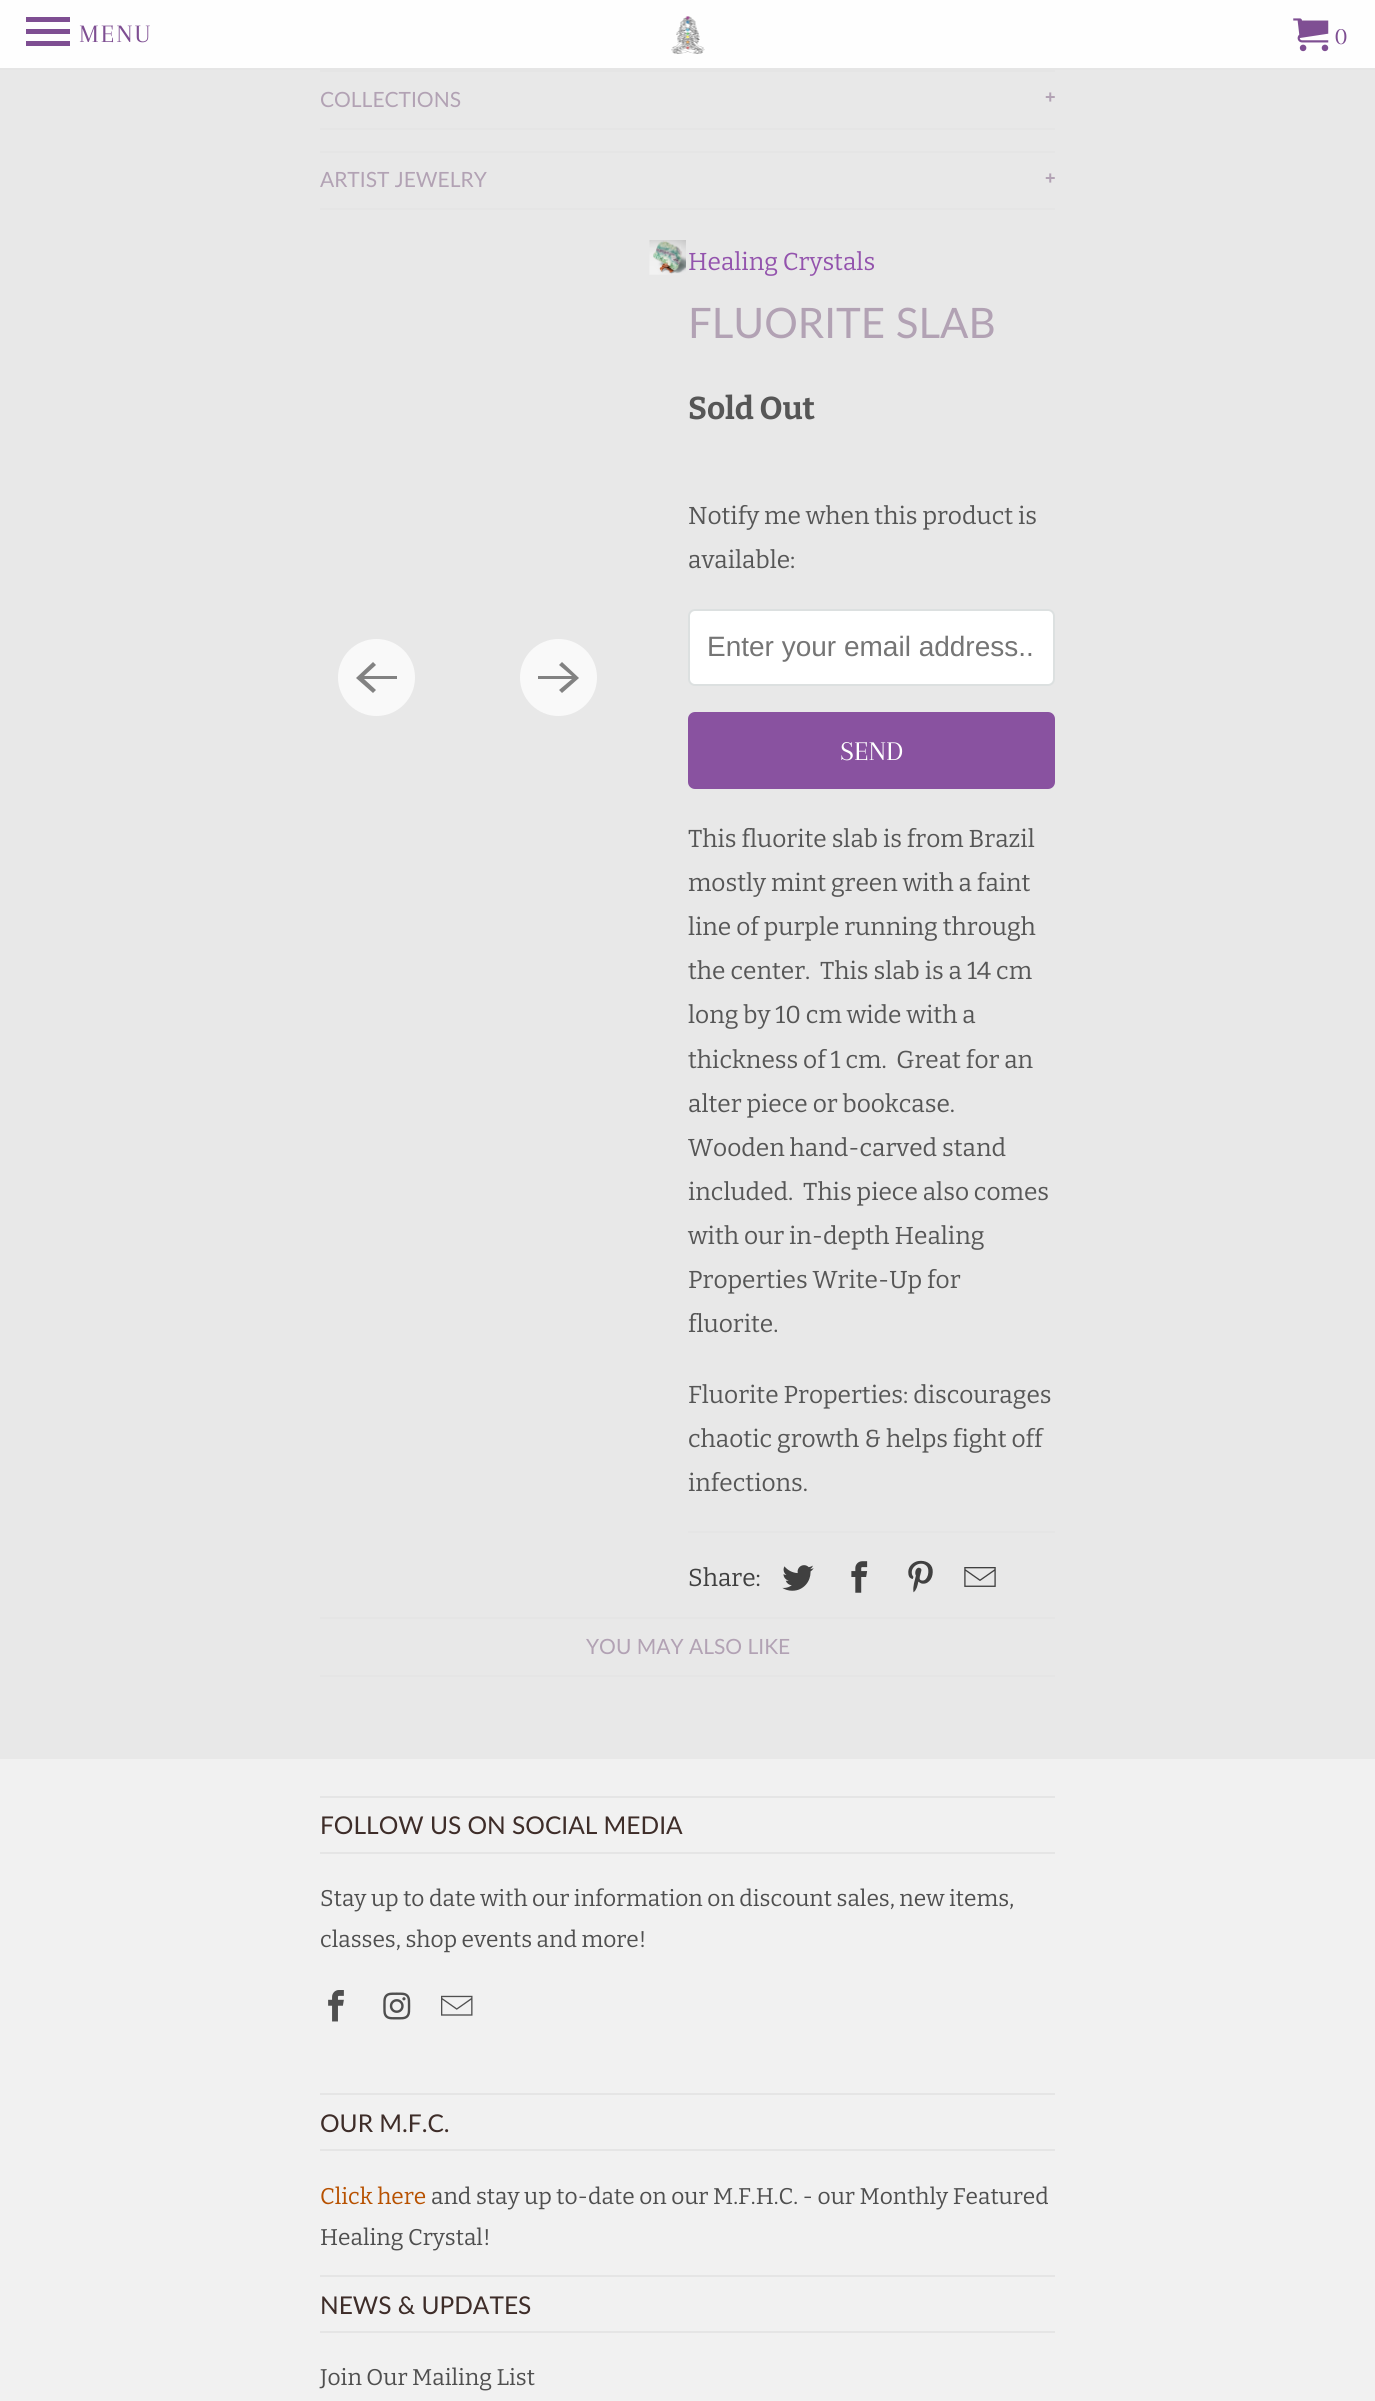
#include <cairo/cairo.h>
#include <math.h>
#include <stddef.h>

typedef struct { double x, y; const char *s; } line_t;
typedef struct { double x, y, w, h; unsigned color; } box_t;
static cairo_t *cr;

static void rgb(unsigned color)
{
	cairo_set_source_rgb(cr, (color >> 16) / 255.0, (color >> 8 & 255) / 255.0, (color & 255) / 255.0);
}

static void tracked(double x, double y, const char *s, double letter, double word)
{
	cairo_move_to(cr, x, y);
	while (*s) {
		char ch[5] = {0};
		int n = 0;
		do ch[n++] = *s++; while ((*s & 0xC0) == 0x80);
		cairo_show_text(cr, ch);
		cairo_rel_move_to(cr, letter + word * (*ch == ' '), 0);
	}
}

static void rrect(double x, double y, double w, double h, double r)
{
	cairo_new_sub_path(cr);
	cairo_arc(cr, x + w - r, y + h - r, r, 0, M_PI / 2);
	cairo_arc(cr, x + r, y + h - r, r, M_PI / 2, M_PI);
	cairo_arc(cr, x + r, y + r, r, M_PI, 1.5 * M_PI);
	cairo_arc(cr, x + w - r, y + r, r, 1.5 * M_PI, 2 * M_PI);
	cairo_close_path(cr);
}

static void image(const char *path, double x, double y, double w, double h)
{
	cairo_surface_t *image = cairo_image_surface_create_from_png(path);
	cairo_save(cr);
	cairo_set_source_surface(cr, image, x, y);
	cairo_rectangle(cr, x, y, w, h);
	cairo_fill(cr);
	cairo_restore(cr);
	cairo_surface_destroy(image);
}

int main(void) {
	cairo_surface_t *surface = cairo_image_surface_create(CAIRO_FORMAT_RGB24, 1375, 2401);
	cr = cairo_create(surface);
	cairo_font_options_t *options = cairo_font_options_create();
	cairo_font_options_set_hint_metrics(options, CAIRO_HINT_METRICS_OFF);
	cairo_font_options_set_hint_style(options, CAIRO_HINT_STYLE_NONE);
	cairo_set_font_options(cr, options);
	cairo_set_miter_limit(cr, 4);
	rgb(0xe8e8e8);
	cairo_paint(cr);
	rgb(0xfefefe);
	cairo_rectangle(cr, 0, 0, 1375, 68);
	cairo_fill(cr);
	rgb(0xe5e5e5);
	cairo_rectangle(cr, 0, 68, 1375, 2);
	cairo_fill(cr);
	rgb(0x7e4e92);
	cairo_new_path(cr);
	cairo_move_to(cr, 26, 46);
	cairo_line_to(cr, 70, 46);
	cairo_line_to(cr, 70, 41);
	cairo_line_to(cr, 26, 41);
	cairo_close_path(cr);
	cairo_move_to(cr, 26, 34);
	cairo_line_to(cr, 70, 34);
	cairo_line_to(cr, 70, 29);
	cairo_line_to(cr, 26, 29);
	cairo_close_path(cr);
	cairo_move_to(cr, 26, 17);
	cairo_line_to(cr, 26, 22);
	cairo_line_to(cr, 70, 22);
	cairo_line_to(cr, 70, 17);
	cairo_close_path(cr);
	cairo_fill(cr);
	image("img/1.png", 671, 16, 34, 38);
	image("img/2.png", 1293, 18, 36, 34);
	{
		static const box_t items[] = {
			{320, 70, 735, 2, 0xe5e5e5},
			{320, 128, 735, 2, 0xe5e5e5},
			{320, 151, 735, 2, 0xe5e5e5},
			{320, 208, 735, 2, 0xe5e5e5},
		};
		for (size_t i = 0; i < sizeof items / sizeof *items; i++) {
			rgb(items[i].color);
			cairo_rectangle(cr, items[i].x, items[i].y, items[i].w, items[i].h);
			cairo_fill(cr);
		}
	}
	image("img/3.png", 649, 240, 37, 35);
	rgb(0xf9f9f9);
	cairo_arc(cr, 376.5, 677.5, 38.5, 0, 2 * M_PI);
	cairo_fill(cr);
	rgb(0x828282);
	cairo_new_path(cr);
	cairo_move_to(cr, 397, 676);
	cairo_line_to(cr, 364, 676);
	cairo_line_to(cr, 376, 665);
	cairo_line_to(cr, 373, 662);
	cairo_line_to(cr, 356, 678);
	cairo_line_to(cr, 373, 693);
	cairo_line_to(cr, 376, 690);
	cairo_line_to(cr, 364, 679);
	cairo_line_to(cr, 397, 679);
	cairo_close_path(cr);
	cairo_fill(cr);
	rgb(0xf9f9f9);
	cairo_arc(cr, 558.5, 677.5, 38.5, 0, 2 * M_PI);
	cairo_fill(cr);
	rgb(0x828282);
	cairo_new_path(cr);
	cairo_move_to(cr, 538, 679);
	cairo_line_to(cr, 572, 679);
	cairo_line_to(cr, 559, 690);
	cairo_line_to(cr, 562, 693);
	cairo_line_to(cr, 579, 678);
	cairo_line_to(cr, 562, 662);
	cairo_line_to(cr, 559, 665);
	cairo_line_to(cr, 572, 676);
	cairo_line_to(cr, 538, 676);
	cairo_close_path(cr);
	cairo_fill(cr);
	rgb(0xffffff);
	rrect(689, 610, 365, 75, 6);
	cairo_fill_preserve(cr);
	rgb(0xdce0e0);
	cairo_stroke(cr);
	rgb(0x8952a0);
	rrect(688, 712, 367, 77, 7);
	cairo_fill(cr);
	rgb(0xe5e5e5);
	cairo_rectangle(cr, 688, 1531, 367, 2);
	cairo_fill(cr);
	image("img/4.png", 782, 1565, 32, 26);
	image("img/5.png", 851, 1561, 17, 32);
	image("img/6.png", 908, 1560, 25, 33);
	image("img/7.png", 964, 1567, 32, 20);
	{
		static const box_t items[] = {
			{320, 1617, 735, 2, 0xe5e5e5},
			{320, 1675, 735, 2, 0xe5e5e5},
			{0, 1759, 1375, 642, 0xf1f1f1},
			{320, 1796, 735, 2, 0xe5e5e5},
			{320, 1852, 735, 2, 0xe5e5e5},
		};
		for (size_t i = 0; i < sizeof items / sizeof *items; i++) {
			rgb(items[i].color);
			cairo_rectangle(cr, items[i].x, items[i].y, items[i].w, items[i].h);
			cairo_fill(cr);
		}
	}
	image("img/8.png", 328, 1990, 16, 32);
	image("img/9.png", 383, 1992, 28, 28);
	image("img/10.png", 441, 1995, 32, 21);
	{
		static const box_t items[] = {
			{320, 2093, 735, 2, 0xe5e5e5},
			{320, 2149, 735, 2, 0xe5e5e5},
			{320, 2275, 735, 2, 0xe5e5e5},
			{320, 2331, 735, 2, 0xe5e5e5},
		};
		for (size_t i = 0; i < sizeof items / sizeof *items; i++) {
			rgb(items[i].color);
			cairo_rectangle(cr, items[i].x, items[i].y, items[i].w, items[i].h);
			cairo_fill(cr);
		}
	}
	cairo_select_font_face(cr, "Arapey", CAIRO_FONT_SLANT_NORMAL, CAIRO_FONT_WEIGHT_NORMAL);
	cairo_set_font_size(cr, 26);
	rgb(0x7e4e92);
	tracked(79, 42, "MENU", 2, 0);
	tracked(1335, 44, "0", 2, 0);
	cairo_select_font_face(cr, "Lato", CAIRO_FONT_SLANT_NORMAL, CAIRO_FONT_WEIGHT_NORMAL);
	cairo_set_font_size(cr, 21);
	rgb(0xb2a2b4);
	cairo_move_to(cr, 320, 107);
	cairo_show_text(cr, "COLLECTIONS");
	cairo_select_font_face(cr, "Liberation Sans", CAIRO_FONT_SLANT_NORMAL, CAIRO_FONT_WEIGHT_BOLD);
	cairo_set_font_size(cr, 18);
	cairo_move_to(cr, 1045, 103);
	cairo_show_text(cr, "+");
	cairo_select_font_face(cr, "Lato", CAIRO_FONT_SLANT_NORMAL, CAIRO_FONT_WEIGHT_NORMAL);
	cairo_set_font_size(cr, 21);
	cairo_move_to(cr, 320, 187);
	cairo_show_text(cr, "ARTIST JEWELRY");
	cairo_select_font_face(cr, "Liberation Sans", CAIRO_FONT_SLANT_NORMAL, CAIRO_FONT_WEIGHT_BOLD);
	cairo_set_font_size(cr, 18);
	cairo_move_to(cr, 1045, 184);
	cairo_show_text(cr, "+");
	cairo_select_font_face(cr, "Bitter", CAIRO_FONT_SLANT_NORMAL, CAIRO_FONT_WEIGHT_NORMAL);
	cairo_set_font_size(cr, 24.5);
	rgb(0x9353ad);
	cairo_move_to(cr, 688, 270);
	cairo_show_text(cr, "Healing Crystals");
	cairo_select_font_face(cr, "Lato", CAIRO_FONT_SLANT_NORMAL, CAIRO_FONT_WEIGHT_NORMAL);
	cairo_set_font_size(cr, 42);
	rgb(0xb2a2b4);
	cairo_move_to(cr, 688, 338);
	cairo_show_text(cr, "FLUORITE SLAB");
	cairo_select_font_face(cr, "Bitter", CAIRO_FONT_SLANT_NORMAL, CAIRO_FONT_WEIGHT_BOLD);
	cairo_set_font_size(cr, 31.5);
	rgb(0x565656);
	cairo_move_to(cr, 688, 419);
	cairo_show_text(cr, "Sold Out");
	cairo_select_font_face(cr, "Bitter", CAIRO_FONT_SLANT_NORMAL, CAIRO_FONT_WEIGHT_NORMAL);
	cairo_set_font_size(cr, 24.5);
	cairo_move_to(cr, 688, 524);
	cairo_show_text(cr, "Notify me when this product is");
	cairo_move_to(cr, 688, 568);
	cairo_show_text(cr, "available:");
	cairo_select_font_face(cr, "Liberation Sans", CAIRO_FONT_SLANT_NORMAL, CAIRO_FONT_WEIGHT_NORMAL);
	cairo_set_font_size(cr, 28);
	rgb(0x757575);
	cairo_move_to(cr, 707, 656);
	cairo_show_text(cr, "Enter your email address..");
	cairo_select_font_face(cr, "Arapey", CAIRO_FONT_SLANT_NORMAL, CAIRO_FONT_WEIGHT_NORMAL);
	rgb(0xffffff);
	cairo_move_to(cr, 840, 760);
	cairo_show_text(cr, "SEND");
	cairo_select_font_face(cr, "Bitter", CAIRO_FONT_SLANT_NORMAL, CAIRO_FONT_WEIGHT_NORMAL);
	cairo_set_font_size(cr, 24.5);
	rgb(0x565656);
	{
		static const line_t items[] = {
			{688, 847, "This fluorite slab is from Brazil"},
			{688, 891, "mostly mint green with a faint"},
			{688, 935, "line of purple running through"},
			{688, 979, "the center.  This slab is a 14 cm"},
			{688, 1023, "long by 10 cm wide with a"},
			{688, 1068, "thickness of 1 cm.  Great for an"},
			{688, 1112, "alter piece or bookcase."},
			{688, 1156, "Wooden hand-carved stand"},
			{688, 1200, "included.  This piece also comes"},
			{688, 1244, "with our in-depth Healing"},
			{688, 1288, "Properties Write-Up for"},
			{688, 1332, "fluorite."},
			{688, 1403, "Fluorite Properties: discourages"},
			{688, 1447, "chaotic growth & helps fight off"},
			{688, 1491, "infections."},
		};
		for (size_t i = 0; i < sizeof items / sizeof *items; i++) {
			cairo_move_to(cr, items[i].x, items[i].y);
			cairo_show_text(cr, items[i].s);
		}
	}
	rgb(0x404040);
	cairo_move_to(cr, 688, 1586);
	cairo_show_text(cr, "Share:");
	cairo_select_font_face(cr, "Lato", CAIRO_FONT_SLANT_NORMAL, CAIRO_FONT_WEIGHT_NORMAL);
	cairo_set_font_size(cr, 21);
	rgb(0xb2a2b4);
	cairo_move_to(cr, 586, 1654);
	cairo_show_text(cr, "YOU MAY ALSO LIKE");
	cairo_set_font_size(cr, 24.5);
	rgb(0x3e2d29);
	cairo_move_to(cr, 320, 1834);
	cairo_show_text(cr, "FOLLOW US ON SOCIAL MEDIA");
	cairo_select_font_face(cr, "Bitter", CAIRO_FONT_SLANT_NORMAL, CAIRO_FONT_WEIGHT_NORMAL);
	cairo_set_font_size(cr, 22.75);
	rgb(0x4f4f4f);
	cairo_move_to(cr, 320, 1906);
	cairo_show_text(cr, "Stay up to date with our information on discount sales, new items,");
	cairo_move_to(cr, 320, 1947);
	cairo_show_text(cr, "classes, shop events and more!");
	cairo_select_font_face(cr, "Lato", CAIRO_FONT_SLANT_NORMAL, CAIRO_FONT_WEIGHT_NORMAL);
	cairo_set_font_size(cr, 24.5);
	rgb(0x3e2d29);
	cairo_move_to(cr, 320, 2132);
	cairo_show_text(cr, "OUR M.F.C.");
	cairo_select_font_face(cr, "Bitter", CAIRO_FONT_SLANT_NORMAL, CAIRO_FONT_WEIGHT_NORMAL);
	cairo_set_font_size(cr, 22.75);
	rgb(0xb75100);
	cairo_move_to(cr, 320, 2204);
	cairo_show_text(cr, "Click here");
	rgb(0x4f4f4f);
	cairo_move_to(cr, 431, 2204);
	cairo_show_text(cr, "and stay up to-date on our M.F.H.C. - our Monthly Featured");
	cairo_move_to(cr, 320, 2245);
	cairo_show_text(cr, "Healing Crystal!");
	cairo_select_font_face(cr, "Lato", CAIRO_FONT_SLANT_NORMAL, CAIRO_FONT_WEIGHT_NORMAL);
	cairo_set_font_size(cr, 24.5);
	rgb(0x3e2d29);
	cairo_move_to(cr, 320, 2314);
	cairo_show_text(cr, "NEWS & UPDATES");
	cairo_select_font_face(cr, "Bitter", CAIRO_FONT_SLANT_NORMAL, CAIRO_FONT_WEIGHT_NORMAL);
	cairo_set_font_size(cr, 22.75);
	rgb(0x4f4f4f);
	cairo_move_to(cr, 320, 2385);
	cairo_show_text(cr, "Join Our Mailing List");
	cairo_surface_write_to_png(surface, "page.png");
	cairo_font_options_destroy(options);
	cairo_destroy(cr);
	cairo_surface_destroy(surface);
	return 0;
}
